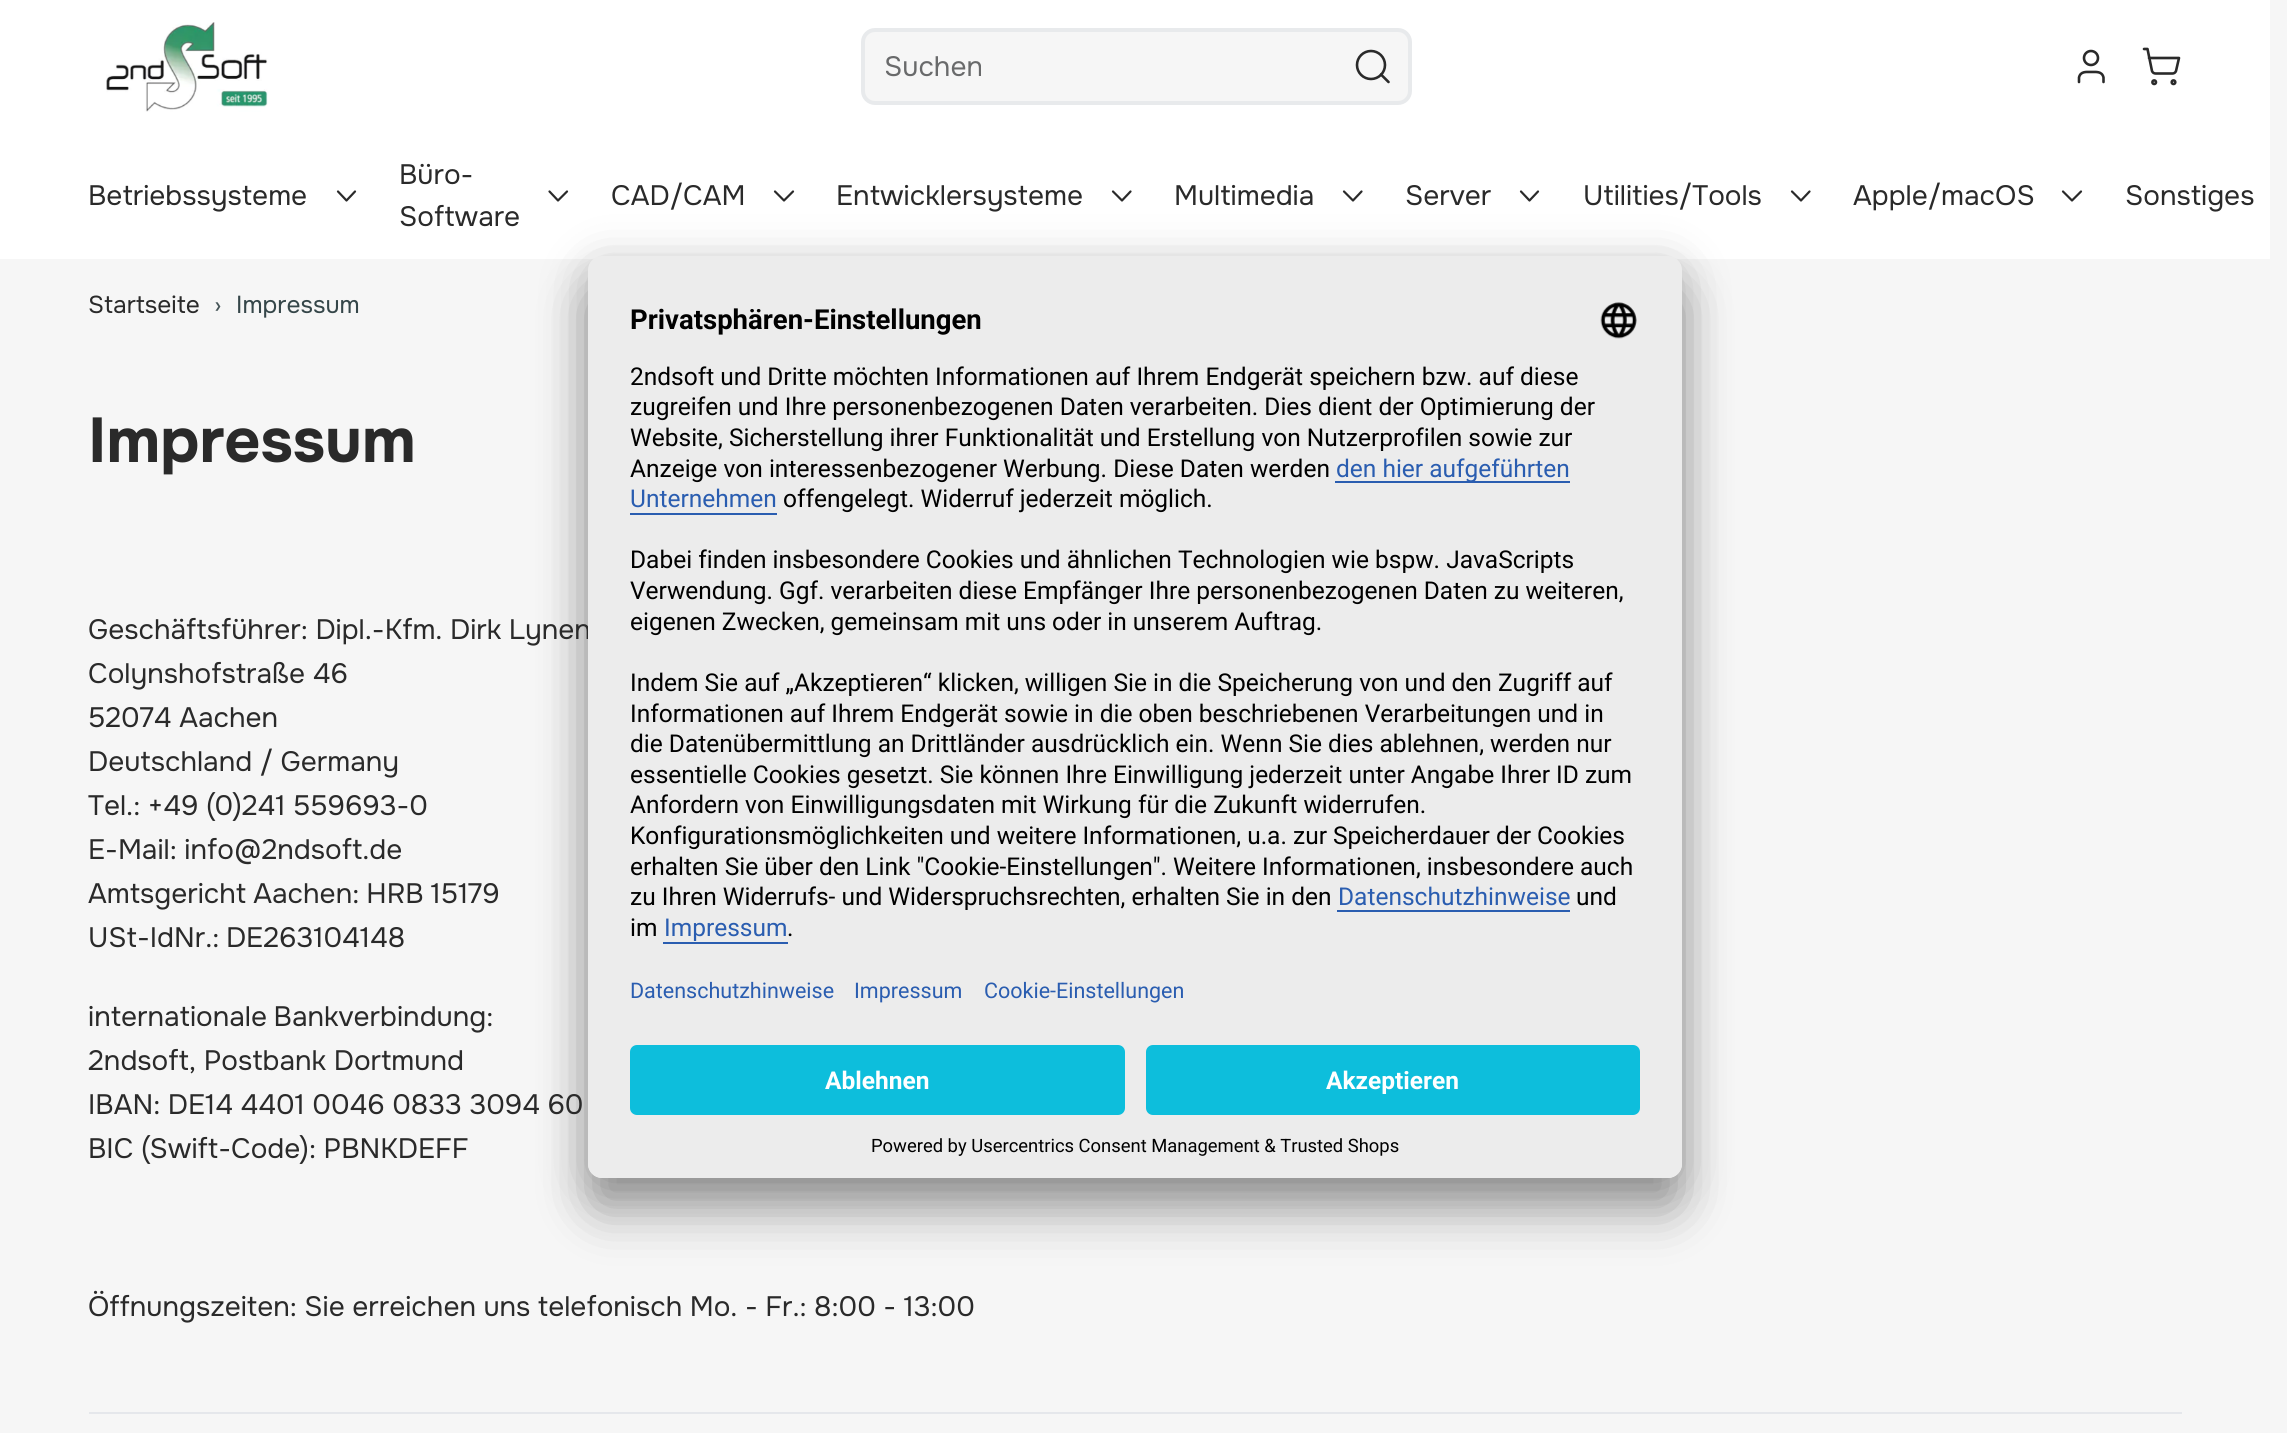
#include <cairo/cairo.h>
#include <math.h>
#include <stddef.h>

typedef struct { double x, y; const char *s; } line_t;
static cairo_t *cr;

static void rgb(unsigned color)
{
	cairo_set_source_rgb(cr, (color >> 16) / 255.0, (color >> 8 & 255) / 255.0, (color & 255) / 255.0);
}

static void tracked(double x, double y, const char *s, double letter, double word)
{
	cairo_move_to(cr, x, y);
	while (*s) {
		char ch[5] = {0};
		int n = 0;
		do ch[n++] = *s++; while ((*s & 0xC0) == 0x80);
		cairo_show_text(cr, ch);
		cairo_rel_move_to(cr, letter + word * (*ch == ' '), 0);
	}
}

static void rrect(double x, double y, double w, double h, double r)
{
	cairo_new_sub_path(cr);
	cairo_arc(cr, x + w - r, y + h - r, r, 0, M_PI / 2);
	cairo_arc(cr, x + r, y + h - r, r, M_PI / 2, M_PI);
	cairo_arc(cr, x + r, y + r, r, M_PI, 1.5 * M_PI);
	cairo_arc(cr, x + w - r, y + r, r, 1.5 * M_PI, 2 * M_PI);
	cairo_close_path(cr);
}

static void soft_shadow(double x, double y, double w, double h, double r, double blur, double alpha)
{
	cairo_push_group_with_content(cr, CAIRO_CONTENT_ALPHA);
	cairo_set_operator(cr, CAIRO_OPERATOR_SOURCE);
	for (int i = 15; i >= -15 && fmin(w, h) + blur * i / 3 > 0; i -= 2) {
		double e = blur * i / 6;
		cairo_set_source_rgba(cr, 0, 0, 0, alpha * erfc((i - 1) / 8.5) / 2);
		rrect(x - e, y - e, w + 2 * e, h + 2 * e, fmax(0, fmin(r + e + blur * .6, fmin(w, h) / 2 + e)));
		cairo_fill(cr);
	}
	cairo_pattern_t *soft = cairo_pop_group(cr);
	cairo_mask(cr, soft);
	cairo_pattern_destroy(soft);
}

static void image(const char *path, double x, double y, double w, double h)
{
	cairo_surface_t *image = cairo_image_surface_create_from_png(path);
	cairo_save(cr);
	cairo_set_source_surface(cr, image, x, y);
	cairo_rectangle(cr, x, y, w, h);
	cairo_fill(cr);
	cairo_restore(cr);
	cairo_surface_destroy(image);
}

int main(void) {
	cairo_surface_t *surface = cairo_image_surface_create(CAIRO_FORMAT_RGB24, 2287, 1433);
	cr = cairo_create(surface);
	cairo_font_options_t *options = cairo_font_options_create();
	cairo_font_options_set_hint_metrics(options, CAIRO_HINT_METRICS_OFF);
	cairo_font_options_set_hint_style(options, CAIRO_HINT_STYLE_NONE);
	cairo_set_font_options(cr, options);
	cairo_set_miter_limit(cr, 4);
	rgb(0xf6f6f6);
	cairo_paint(cr);
	rgb(0xffffff);
	cairo_rectangle(cr, 0, 0, 2270, 259);
	cairo_fill(cr);
	image("img/1.png", 106, 22, 162, 90);
	rgb(0xf6f6f6);
	rrect(863, 30, 547, 73, 12);
	cairo_fill_preserve(cr);
	rgb(0xe8eaec);
	cairo_set_line_width(cr, 4);
	cairo_stroke(cr);
	cairo_new_path(cr);
	cairo_move_to(cr, 1388.5, 82);
	cairo_line_to(cr, 1381, 74.5);
	rgb(0x2a2a2a);
	cairo_set_line_width(cr, 2.6);
	cairo_set_line_cap(cr, CAIRO_LINE_CAP_ROUND);
	cairo_set_line_join(cr, CAIRO_LINE_JOIN_ROUND);
	cairo_stroke(cr);
	cairo_arc(cr, 1371, 65, 14, 0, 2 * M_PI);
	cairo_set_line_cap(cr, CAIRO_LINE_CAP_BUTT);
	cairo_set_line_join(cr, CAIRO_LINE_JOIN_MITER);
	cairo_stroke(cr);
	cairo_new_path(cr);
	cairo_move_to(cr, 2103.5, 82);
	cairo_line_to(cr, 2103.5, 77.5);
	cairo_curve_to(cr, 2102, 71, 2096, 72, 2091, 72);
	cairo_curve_to(cr, 2086.5, 72, 2080.5, 71, 2079, 77.5);
	cairo_line_to(cr, 2079, 82);
	cairo_set_line_cap(cr, CAIRO_LINE_CAP_ROUND);
	cairo_set_line_join(cr, CAIRO_LINE_JOIN_ROUND);
	cairo_stroke(cr);
	cairo_arc(cr, 2091, 58, 7, 0, 2 * M_PI);
	cairo_set_line_cap(cr, CAIRO_LINE_CAP_BUTT);
	cairo_set_line_join(cr, CAIRO_LINE_JOIN_MITER);
	cairo_stroke(cr);
	cairo_arc(cr, 2154.2, 82.2, 1.8, 0, 2 * M_PI);
	cairo_stroke(cr);
	cairo_arc(cr, 2173.5, 82.2, 1.8, 0, 2 * M_PI);
	cairo_stroke(cr);
	cairo_new_path(cr);
	cairo_move_to(cr, 2144, 49);
	cairo_line_to(cr, 2147.5, 49);
	cairo_line_to(cr, 2152, 71);
	cairo_curve_to(cr, 2152.5, 72.5, 2154, 73.5, 2155.5, 73.5);
	cairo_line_to(cr, 2172.5, 73.5);
	cairo_curve_to(cr, 2174, 73.5, 2175.5, 72.5, 2176, 71);
	cairo_line_to(cr, 2179, 58);
	cairo_line_to(cr, 2149, 58);
	cairo_set_line_cap(cr, CAIRO_LINE_CAP_ROUND);
	cairo_set_line_join(cr, CAIRO_LINE_JOIN_ROUND);
	cairo_stroke(cr);
	cairo_new_path(cr);
	cairo_move_to(cr, 338, 191.5);
	cairo_line_to(cr, 346.5, 200.5);
	cairo_line_to(cr, 355, 191.5);
	cairo_set_line_width(cr, 2.2);
	cairo_stroke(cr);
	cairo_new_path(cr);
	cairo_move_to(cr, 549.5, 191.5);
	cairo_line_to(cr, 558, 200.5);
	cairo_line_to(cr, 567, 191.5);
	cairo_stroke(cr);
	cairo_new_path(cr);
	cairo_move_to(cr, 775, 191.5);
	cairo_line_to(cr, 784, 200.5);
	cairo_line_to(cr, 793, 191.5);
	cairo_stroke(cr);
	cairo_new_path(cr);
	cairo_move_to(cr, 1113, 191.5);
	cairo_line_to(cr, 1122, 200.5);
	cairo_line_to(cr, 1130.5, 191.5);
	cairo_stroke(cr);
	cairo_new_path(cr);
	cairo_move_to(cr, 1344, 191.5);
	cairo_line_to(cr, 1353, 200.5);
	cairo_line_to(cr, 1361.5, 191.5);
	cairo_stroke(cr);
	cairo_new_path(cr);
	cairo_move_to(cr, 1521, 191.5);
	cairo_line_to(cr, 1529.5, 200.5);
	cairo_line_to(cr, 1538, 191.5);
	cairo_stroke(cr);
	cairo_new_path(cr);
	cairo_move_to(cr, 1792, 191.5);
	cairo_line_to(cr, 1801, 200.5);
	cairo_line_to(cr, 1809.5, 191.5);
	cairo_stroke(cr);
	cairo_new_path(cr);
	cairo_move_to(cr, 2063, 191.5);
	cairo_line_to(cr, 2072, 200.5);
	cairo_line_to(cr, 2081, 191.5);
	cairo_stroke(cr);
	rgb(0xe5e7eb);
	cairo_rectangle(cr, 89, 1412, 2093, 2);
	cairo_fill(cr);
	rgb(0x000000);
	soft_shadow(588, 291, 1094, 922, 14, 24.5, 0.3);
	soft_shadow(588, 264, 1094, 923, 14, 23, 0.22);
	cairo_save(cr);
	cairo_rectangle(cr, 886, 49, 383, 37);
	cairo_clip(cr);
	cairo_select_font_face(cr, "Onest", CAIRO_FONT_SLANT_NORMAL, CAIRO_FONT_WEIGHT_NORMAL);
	cairo_set_font_size(cr, 28);
	rgb(0x696a6b);
	cairo_move_to(cr, 884, 76);
	cairo_show_text(cr, "Suchen");
	cairo_restore(cr);
	cairo_select_font_face(cr, "Onest", CAIRO_FONT_SLANT_NORMAL, CAIRO_FONT_WEIGHT_NORMAL);
	cairo_set_font_size(cr, 28);
	rgb(0x2a2a2a);
	{
		static const line_t items[] = {
			{88, 205, "Betriebssysteme"},
			{399, 184, "Büro-"},
			{399, 226, "Software"},
			{611, 205, "CAD/CAM"},
			{836, 205, "Entwicklersysteme"},
			{1174, 205, "Multimedia"},
			{1405, 205, "Server"},
			{1583, 205, "Utilities/Tools"},
			{1853, 205, "Apple/macOS"},
			{2125, 205, "Sonstiges"},
		};
		for (size_t i = 0; i < sizeof items / sizeof *items; i++) {
			cairo_move_to(cr, items[i].x, items[i].y);
			cairo_show_text(cr, items[i].s);
		}
	}
	cairo_set_font_size(cr, 24.5);
	cairo_move_to(cr, 88, 313);
	cairo_show_text(cr, "Startseite");
	rgb(0x475659);
	cairo_move_to(cr, 214, 313);
	cairo_show_text(cr, "›");
	rgb(0x354649);
	cairo_move_to(cr, 236, 313);
	cairo_show_text(cr, "Impressum");
	cairo_select_font_face(cr, "Onest", CAIRO_FONT_SLANT_NORMAL, CAIRO_FONT_WEIGHT_BOLD);
	cairo_set_font_size(cr, 63);
	rgb(0x2a2a2a);
	cairo_move_to(cr, 88, 462);
	cairo_show_text(cr, "Impressum");
	cairo_select_font_face(cr, "Onest", CAIRO_FONT_SLANT_NORMAL, CAIRO_FONT_WEIGHT_NORMAL);
	cairo_set_font_size(cr, 28);
	{
		static const line_t items[] = {
			{88, 639, "Geschäftsführer: Dipl.-Kfm. Dirk Lynen"},
			{88, 683, "Colynshofstraße 46"},
			{88, 727, "52074 Aachen"},
			{88, 771, "Deutschland / Germany"},
			{88, 815, "Tel.: +49 (0)241 559693-0"},
			{88, 859, "E-Mail: info@2ndsoft.de"},
		};
		for (size_t i = 0; i < sizeof items / sizeof *items; i++) {
			cairo_move_to(cr, items[i].x, items[i].y);
			cairo_show_text(cr, items[i].s);
		}
	}
	tracked(88, 903, "Amtsgericht Aachen: HRB 15179", 0, -0.5);
	tracked(88, 947, "USt-IdNr.: DE263104148", 0, -1);
	tracked(88, 1026, "internationale Bankverbindung:", 0, -1);
	{
		static const line_t items[] = {
			{88, 1070, "2ndsoft, Postbank Dortmund"},
			{88, 1114, "IBAN: DE14 4401 0046 0833 3094 60"},
			{88, 1158, "BIC (Swift-Code): PBNKDEFF"},
		};
		for (size_t i = 0; i < sizeof items / sizeof *items; i++) {
			cairo_move_to(cr, items[i].x, items[i].y);
			cairo_show_text(cr, items[i].s);
		}
	}
	tracked(88, 1316, "Öffnungszeiten: Sie erreichen uns telefonisch Mo. - Fr.: 8:00 - 13:00", 0, -0.1);
	rgb(0xececec);
	rrect(588, 256, 1094, 922, 14);
	cairo_fill(cr);
	cairo_select_font_face(cr, "Roboto", CAIRO_FONT_SLANT_NORMAL, CAIRO_FONT_WEIGHT_BOLD);
	cairo_set_font_size(cr, 27.5);
	rgb(0x000000);
	cairo_move_to(cr, 630, 329);
	cairo_show_text(cr, "Privatsphären-Einstellungen");
	image("img/2.png", 1600, 302, 37, 37);
	cairo_select_font_face(cr, "Roboto", CAIRO_FONT_SLANT_NORMAL, CAIRO_FONT_WEIGHT_NORMAL);
	cairo_set_font_size(cr, 24.5);
	{
		static const line_t items[] = {
			{630, 385, "2ndsoft und Dritte möchten Informationen auf Ihrem Endgerät speichern bzw. auf diese"},
			{630, 415, "zugreifen und Ihre personenbezogenen Daten verarbeiten. Dies dient der Optimierung der"},
			{630, 446, "Website, Sicherstellung ihrer Funktionalität und Erstellung von Nutzerprofilen sowie zur"},
			{630, 477, "Anzeige von interessenbezogener Werbung. Diese Daten werden"},
		};
		for (size_t i = 0; i < sizeof items / sizeof *items; i++) {
			cairo_move_to(cr, items[i].x, items[i].y);
			cairo_show_text(cr, items[i].s);
		}
	}
	rgb(0x2a5db0);
	cairo_rectangle(cr, 1335, 481, 235, 2);
	cairo_fill(cr);
	cairo_move_to(cr, 1336, 477);
	cairo_show_text(cr, "den hier aufgeführten");
	cairo_move_to(cr, 630, 507);
	cairo_show_text(cr, "Unternehmen");
	cairo_rectangle(cr, 630, 513, 147, 2);
	cairo_fill(cr);
	rgb(0x000000);
	{
		static const line_t items[] = {
			{783, 507, "offengelegt. Widerruf jederzeit möglich."},
			{630, 568, "Dabei finden insbesondere Cookies und ähnlichen Technologien wie bspw. JavaScripts"},
			{630, 599, "Verwendung. Ggf. verarbeiten diese Empfänger Ihre personenbezogenen Daten zu weiteren,"},
			{630, 630, "eigenen Zwecken, gemeinsam mit uns oder in unserem Auftrag."},
			{630, 691, "Indem Sie auf „Akzeptieren“ klicken, willigen Sie in die Speicherung von und den Zugriff auf"},
			{630, 722, "Informationen auf Ihrem Endgerät sowie in die oben beschriebenen Verarbeitungen und in"},
			{630, 752, "die Datenübermittlung an Drittländer ausdrücklich ein. Wenn Sie dies ablehnen, werden nur"},
			{630, 783, "essentielle Cookies gesetzt. Sie können Ihre Einwilligung jederzeit unter Angabe Ihrer ID zum"},
			{630, 813, "Anfordern von Einwilligungsdaten mit Wirkung für die Zukunft widerrufen."},
			{630, 844, "Konfigurationsmöglichkeiten und weitere Informationen, u.a. zur Speicherdauer der Cookies"},
			{630, 875, "erhalten Sie über den Link \"Cookie-Einstellungen\". Weitere Informationen, insbesondere auch"},
			{630, 905, "zu Ihren Widerrufs- und Widerspruchsrechten, erhalten Sie in den"},
		};
		for (size_t i = 0; i < sizeof items / sizeof *items; i++) {
			cairo_move_to(cr, items[i].x, items[i].y);
			cairo_show_text(cr, items[i].s);
		}
	}
	rgb(0x2a5db0);
	cairo_move_to(cr, 1338, 905);
	cairo_show_text(cr, "Datenschutzhinweise");
	cairo_rectangle(cr, 1337, 910, 233, 2);
	cairo_fill(cr);
	rgb(0x000000);
	cairo_move_to(cr, 1576, 905);
	cairo_show_text(cr, "und");
	cairo_move_to(cr, 630, 936);
	cairo_show_text(cr, "im");
	rgb(0x2a5db0);
	cairo_move_to(cr, 664, 936);
	cairo_show_text(cr, "Impressum");
	rgb(0x000000);
	cairo_move_to(cr, 787, 936);
	cairo_show_text(cr, ".");
	rgb(0x2a5db0);
	cairo_rectangle(cr, 663, 942, 125, 2);
	cairo_fill(cr);
	cairo_set_font_size(cr, 21.5);
	{
		static const line_t items[] = {
			{630, 998, "Datenschutzhinweise"},
			{854, 998, "Impressum"},
			{984, 998, "Cookie-Einstellungen"},
		};
		for (size_t i = 0; i < sizeof items / sizeof *items; i++) {
			cairo_move_to(cr, items[i].x, items[i].y);
			cairo_show_text(cr, items[i].s);
		}
	}
	rgb(0xececec);
	cairo_new_path(cr);
	cairo_move_to(cr, 588, 1031);
	cairo_line_to(cr, 1682, 1031);
	cairo_line_to(cr, 1682, 1164);
	cairo_curve_to(cr, 1682, 1171.5, 1675.5, 1178, 1668, 1178);
	cairo_line_to(cr, 602, 1178);
	cairo_curve_to(cr, 594.5, 1178, 588, 1171.5, 588, 1164);
	cairo_close_path(cr);
	cairo_fill(cr);
	rgb(0x0dbedc);
	rrect(630, 1045, 495, 70, 7);
	cairo_fill(cr);
	cairo_select_font_face(cr, "Roboto", CAIRO_FONT_SLANT_NORMAL, CAIRO_FONT_WEIGHT_BOLD);
	cairo_set_font_size(cr, 24.5);
	rgb(0xffffff);
	cairo_move_to(cr, 825, 1089);
	cairo_show_text(cr, "Ablehnen");
	rgb(0x0dbedc);
	rrect(1146, 1045, 494, 70, 7);
	cairo_fill(cr);
	rgb(0xffffff);
	cairo_move_to(cr, 1326, 1089);
	cairo_show_text(cr, "Akzeptieren");
	cairo_select_font_face(cr, "Roboto", CAIRO_FONT_SLANT_NORMAL, CAIRO_FONT_WEIGHT_NORMAL);
	cairo_set_font_size(cr, 18.4);
	rgb(0x000000);
	cairo_move_to(cr, 871, 1152);
	cairo_show_text(cr, "Powered by Usercentrics Consent Management & Trusted Shops");
	cairo_surface_write_to_png(surface, "page.png");
	cairo_font_options_destroy(options);
	cairo_destroy(cr);
	cairo_surface_destroy(surface);
	return 0;
}
